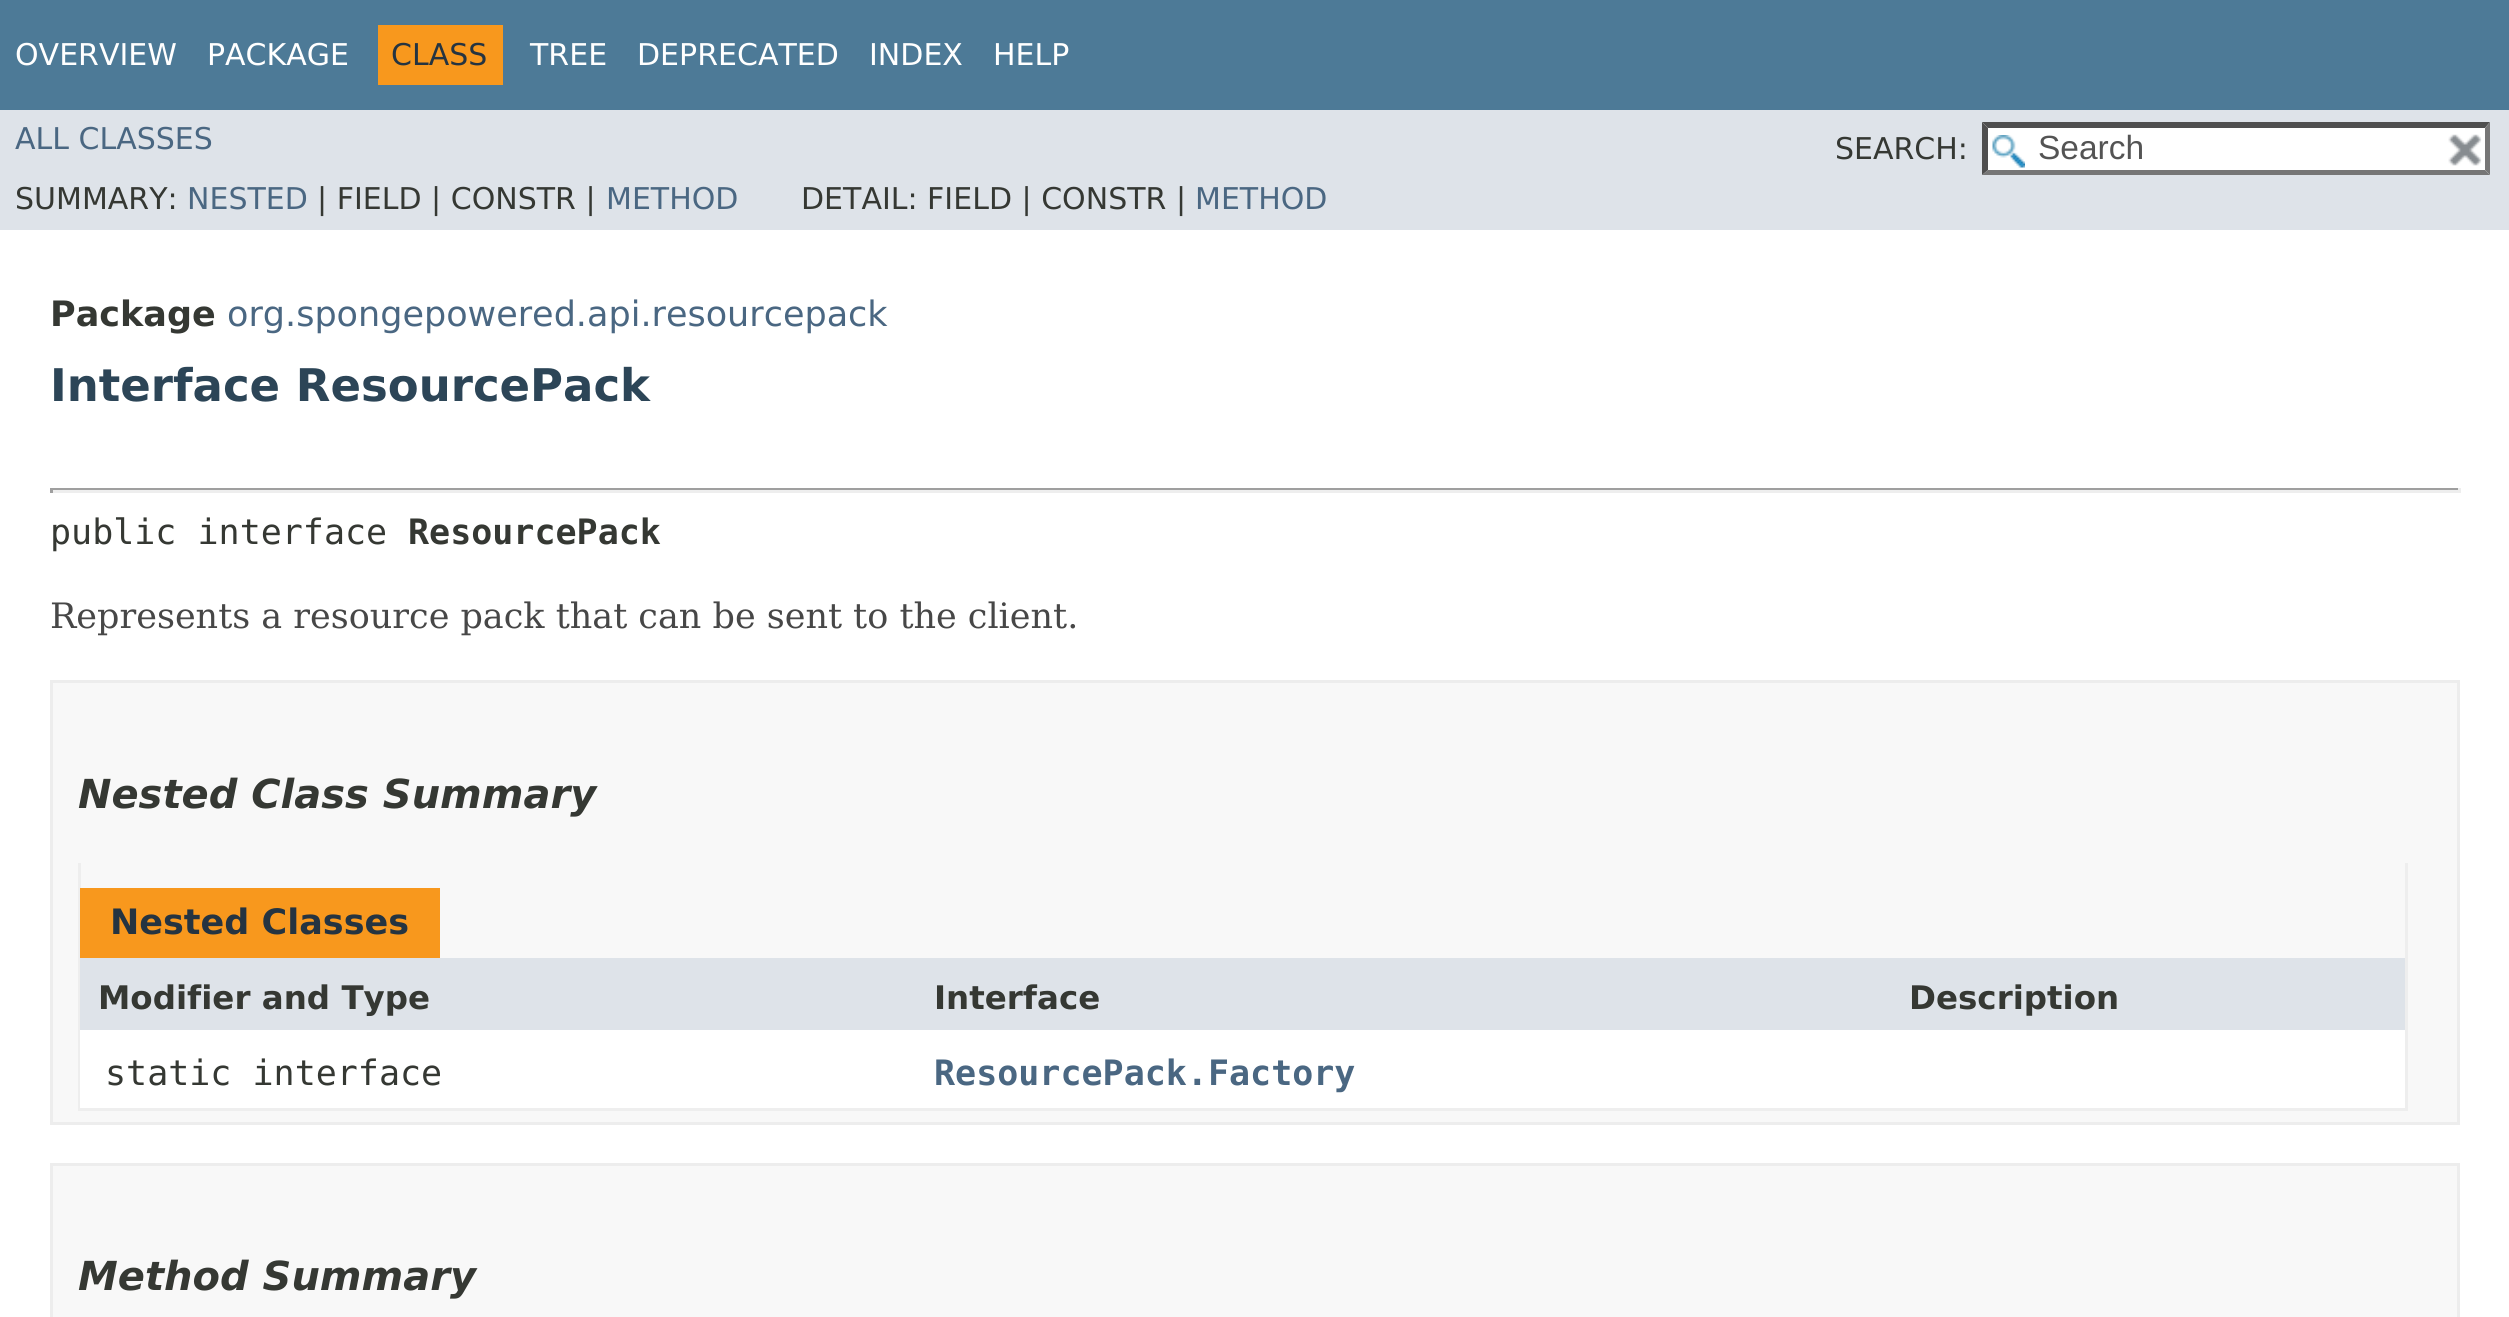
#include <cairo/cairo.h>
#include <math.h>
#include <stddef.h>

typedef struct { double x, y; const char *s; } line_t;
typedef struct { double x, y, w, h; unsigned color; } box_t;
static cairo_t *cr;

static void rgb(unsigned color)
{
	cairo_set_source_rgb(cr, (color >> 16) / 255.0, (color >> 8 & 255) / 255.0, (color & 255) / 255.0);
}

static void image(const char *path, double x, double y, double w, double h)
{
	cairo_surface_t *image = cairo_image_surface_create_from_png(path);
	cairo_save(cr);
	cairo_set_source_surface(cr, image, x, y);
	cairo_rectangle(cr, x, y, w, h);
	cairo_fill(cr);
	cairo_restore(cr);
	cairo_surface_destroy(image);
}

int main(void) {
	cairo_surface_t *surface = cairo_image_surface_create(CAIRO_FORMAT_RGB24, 2509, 1317);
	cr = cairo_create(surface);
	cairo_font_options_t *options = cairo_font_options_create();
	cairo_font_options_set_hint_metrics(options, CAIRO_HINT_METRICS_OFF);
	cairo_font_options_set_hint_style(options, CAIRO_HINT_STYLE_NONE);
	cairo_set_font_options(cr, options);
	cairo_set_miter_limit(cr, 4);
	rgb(0xffffff);
	cairo_paint(cr);
	{
		static const box_t items[] = {
			{0, 0, 2509, 110, 0x4d7a97},
			{378, 25, 125, 60, 0xf8981d},
			{0, 110, 2509, 120, 0xdee3e9},
			{1983, 123, 507, 52, 0xffffff},
		};
		for (size_t i = 0; i < sizeof items / sizeof *items; i++) {
			rgb(items[i].color);
			cairo_rectangle(cr, items[i].x, items[i].y, items[i].w, items[i].h);
			cairo_fill(cr);
		}
	}
	image("img/1.png", 1992, 135, 33, 33);
	rgb(0x4f4f4f);
	cairo_new_path(cr);
	cairo_move_to(cr, 1982, 122);
	cairo_line_to(cr, 2490, 122);
	cairo_line_to(cr, 2485, 128);
	cairo_line_to(cr, 1988, 128);
	cairo_close_path(cr);
	cairo_fill(cr);
	rgb(0x767676);
	cairo_new_path(cr);
	cairo_move_to(cr, 2490, 122);
	cairo_line_to(cr, 2490, 175);
	cairo_line_to(cr, 2485, 170);
	cairo_line_to(cr, 2485, 128);
	cairo_close_path(cr);
	cairo_fill(cr);
	cairo_new_path(cr);
	cairo_move_to(cr, 2490, 175);
	cairo_line_to(cr, 1982, 175);
	cairo_line_to(cr, 1988, 170);
	cairo_line_to(cr, 2485, 170);
	cairo_close_path(cr);
	cairo_fill(cr);
	rgb(0x4f4f4f);
	cairo_new_path(cr);
	cairo_move_to(cr, 1982, 175);
	cairo_line_to(cr, 1982, 122);
	cairo_line_to(cr, 1988, 128);
	cairo_line_to(cr, 1988, 170);
	cairo_close_path(cr);
	cairo_fill(cr);
	image("img/2.png", 2448, 134, 34, 32);
	{
		static const box_t items[] = {
			{50, 488, 2410, 2, 0x9f9f9f},
			{2458, 488, 3, 5, 0xeeeeee},
			{50, 490, 2410, 3, 0xeeeeee},
			{50, 488, 3, 5, 0x9f9f9f},
		};
		for (size_t i = 0; i < sizeof items / sizeof *items; i++) {
			rgb(items[i].color);
			cairo_rectangle(cr, items[i].x, items[i].y, items[i].w, items[i].h);
			cairo_fill(cr);
		}
	}
	rgb(0xf8f8f8);
	cairo_rectangle(cr, 51.5, 681.5, 2407, 442);
	cairo_fill_preserve(cr);
	rgb(0xededed);
	cairo_set_line_width(cr, 3);
	cairo_stroke(cr);
	{
		static const box_t items[] = {
			{2405, 863, 3, 247, 0xeeeeee},
			{78, 1108, 2330, 3, 0xeeeeee},
			{78, 863, 3, 247, 0xeeeeee},
			{80, 888, 360, 70, 0xf8981d},
			{80, 958, 2325, 72, 0xdee3e9},
			{80, 1030, 2325, 78, 0xffffff},
		};
		for (size_t i = 0; i < sizeof items / sizeof *items; i++) {
			rgb(items[i].color);
			cairo_rectangle(cr, items[i].x, items[i].y, items[i].w, items[i].h);
			cairo_fill(cr);
		}
	}
	rgb(0xf8f8f8);
	cairo_rectangle(cr, 51.5, 1164.5, 2407, 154);
	cairo_fill_preserve(cr);
	rgb(0xededed);
	cairo_stroke(cr);
	cairo_select_font_face(cr, "DejaVu Sans", CAIRO_FONT_SLANT_NORMAL, CAIRO_FONT_WEIGHT_NORMAL);
	cairo_set_font_size(cr, 30);
	rgb(0xffffff);
	cairo_move_to(cr, 15, 65);
	cairo_show_text(cr, "OVERVIEW");
	cairo_move_to(cr, 207, 65);
	cairo_show_text(cr, "PACKAGE");
	rgb(0x253441);
	cairo_move_to(cr, 391, 65);
	cairo_show_text(cr, "CLASS");
	rgb(0xffffff);
	{
		static const line_t items[] = {
			{530, 65, "TREE"},
			{637, 65, "DEPRECATED"},
			{869, 65, "INDEX"},
			{993, 65, "HELP"},
		};
		for (size_t i = 0; i < sizeof items / sizeof *items; i++) {
			cairo_move_to(cr, items[i].x, items[i].y);
			cairo_show_text(cr, items[i].s);
		}
	}
	rgb(0x4a6782);
	cairo_move_to(cr, 15, 149);
	cairo_show_text(cr, "ALL CLASSES");
	rgb(0x353833);
	cairo_move_to(cr, 1835, 159);
	cairo_show_text(cr, "SEARCH:");
	cairo_select_font_face(cr, "Liberation Sans", CAIRO_FONT_SLANT_NORMAL, CAIRO_FONT_WEIGHT_NORMAL);
	cairo_set_font_size(cr, 33.5);
	rgb(0x545454);
	cairo_move_to(cr, 2038, 159);
	cairo_show_text(cr, "Search");
	cairo_select_font_face(cr, "DejaVu Sans", CAIRO_FONT_SLANT_NORMAL, CAIRO_FONT_WEIGHT_NORMAL);
	cairo_set_font_size(cr, 30);
	rgb(0x353833);
	cairo_move_to(cr, 15, 209);
	cairo_show_text(cr, "SUMMARY:");
	rgb(0x4a6782);
	cairo_move_to(cr, 187, 209);
	cairo_show_text(cr, "NESTED");
	rgb(0x353833);
	cairo_move_to(cr, 317, 209);
	cairo_show_text(cr, "| FIELD | CONSTR |");
	rgb(0x4a6782);
	cairo_move_to(cr, 606, 209);
	cairo_show_text(cr, "METHOD");
	rgb(0x353833);
	cairo_move_to(cr, 801, 209);
	cairo_show_text(cr, "DETAIL: FIELD | CONSTR |");
	rgb(0x4a6782);
	cairo_move_to(cr, 1195, 209);
	cairo_show_text(cr, "METHOD");
	cairo_select_font_face(cr, "DejaVu Sans", CAIRO_FONT_SLANT_NORMAL, CAIRO_FONT_WEIGHT_BOLD);
	cairo_set_font_size(cr, 35);
	rgb(0x353833);
	cairo_move_to(cr, 50, 326);
	cairo_show_text(cr, "Package");
	cairo_select_font_face(cr, "DejaVu Sans", CAIRO_FONT_SLANT_NORMAL, CAIRO_FONT_WEIGHT_NORMAL);
	rgb(0x4a6782);
	cairo_move_to(cr, 227, 326);
	cairo_show_text(cr, "org.spongepowered.api.resourcepack");
	cairo_select_font_face(cr, "DejaVu Sans", CAIRO_FONT_SLANT_NORMAL, CAIRO_FONT_WEIGHT_BOLD);
	cairo_set_font_size(cr, 45);
	rgb(0x2c4557);
	cairo_move_to(cr, 50, 401);
	cairo_show_text(cr, "Interface ResourcePack");
	cairo_select_font_face(cr, "DejaVu Sans Mono", CAIRO_FONT_SLANT_NORMAL, CAIRO_FONT_WEIGHT_NORMAL);
	cairo_set_font_size(cr, 35);
	rgb(0x353833);
	cairo_move_to(cr, 50, 544);
	cairo_show_text(cr, "public interface");
	cairo_select_font_face(cr, "DejaVu Sans Mono", CAIRO_FONT_SLANT_NORMAL, CAIRO_FONT_WEIGHT_BOLD);
	cairo_move_to(cr, 408, 544);
	cairo_show_text(cr, "ResourcePack");
	cairo_select_font_face(cr, "DejaVu Serif", CAIRO_FONT_SLANT_NORMAL, CAIRO_FONT_WEIGHT_NORMAL);
	rgb(0x474747);
	cairo_move_to(cr, 50, 628);
	cairo_show_text(cr, "Represents a resource pack that can be sent to the client.");
	cairo_select_font_face(cr, "DejaVu Sans", CAIRO_FONT_SLANT_ITALIC, CAIRO_FONT_WEIGHT_BOLD);
	cairo_set_font_size(cr, 40);
	rgb(0x353833);
	cairo_move_to(cr, 78, 808);
	cairo_show_text(cr, "Nested Class Summary");
	cairo_select_font_face(cr, "DejaVu Sans", CAIRO_FONT_SLANT_NORMAL, CAIRO_FONT_WEIGHT_BOLD);
	cairo_set_font_size(cr, 35);
	rgb(0x253441);
	cairo_move_to(cr, 110, 934);
	cairo_show_text(cr, "Nested Classes");
	cairo_set_font_size(cr, 32.5);
	rgb(0x353833);
	{
		static const line_t items[] = {
			{98, 1009, "Modifier and Type"},
			{934, 1009, "Interface"},
			{1909, 1009, "Description"},
		};
		for (size_t i = 0; i < sizeof items / sizeof *items; i++) {
			cairo_move_to(cr, items[i].x, items[i].y);
			cairo_show_text(cr, items[i].s);
		}
	}
	cairo_select_font_face(cr, "DejaVu Sans Mono", CAIRO_FONT_SLANT_NORMAL, CAIRO_FONT_WEIGHT_NORMAL);
	cairo_set_font_size(cr, 35);
	cairo_move_to(cr, 105, 1085);
	cairo_show_text(cr, "static interface");
	cairo_select_font_face(cr, "DejaVu Sans Mono", CAIRO_FONT_SLANT_NORMAL, CAIRO_FONT_WEIGHT_BOLD);
	rgb(0x4a6782);
	cairo_move_to(cr, 934, 1085);
	cairo_show_text(cr, "ResourcePack.Factory");
	cairo_select_font_face(cr, "DejaVu Sans", CAIRO_FONT_SLANT_ITALIC, CAIRO_FONT_WEIGHT_BOLD);
	cairo_set_font_size(cr, 40);
	rgb(0x353833);
	cairo_move_to(cr, 78, 1290);
	cairo_show_text(cr, "Method Summary");
	cairo_surface_write_to_png(surface, "page.png");
	cairo_font_options_destroy(options);
	cairo_destroy(cr);
	cairo_surface_destroy(surface);
	return 0;
}
